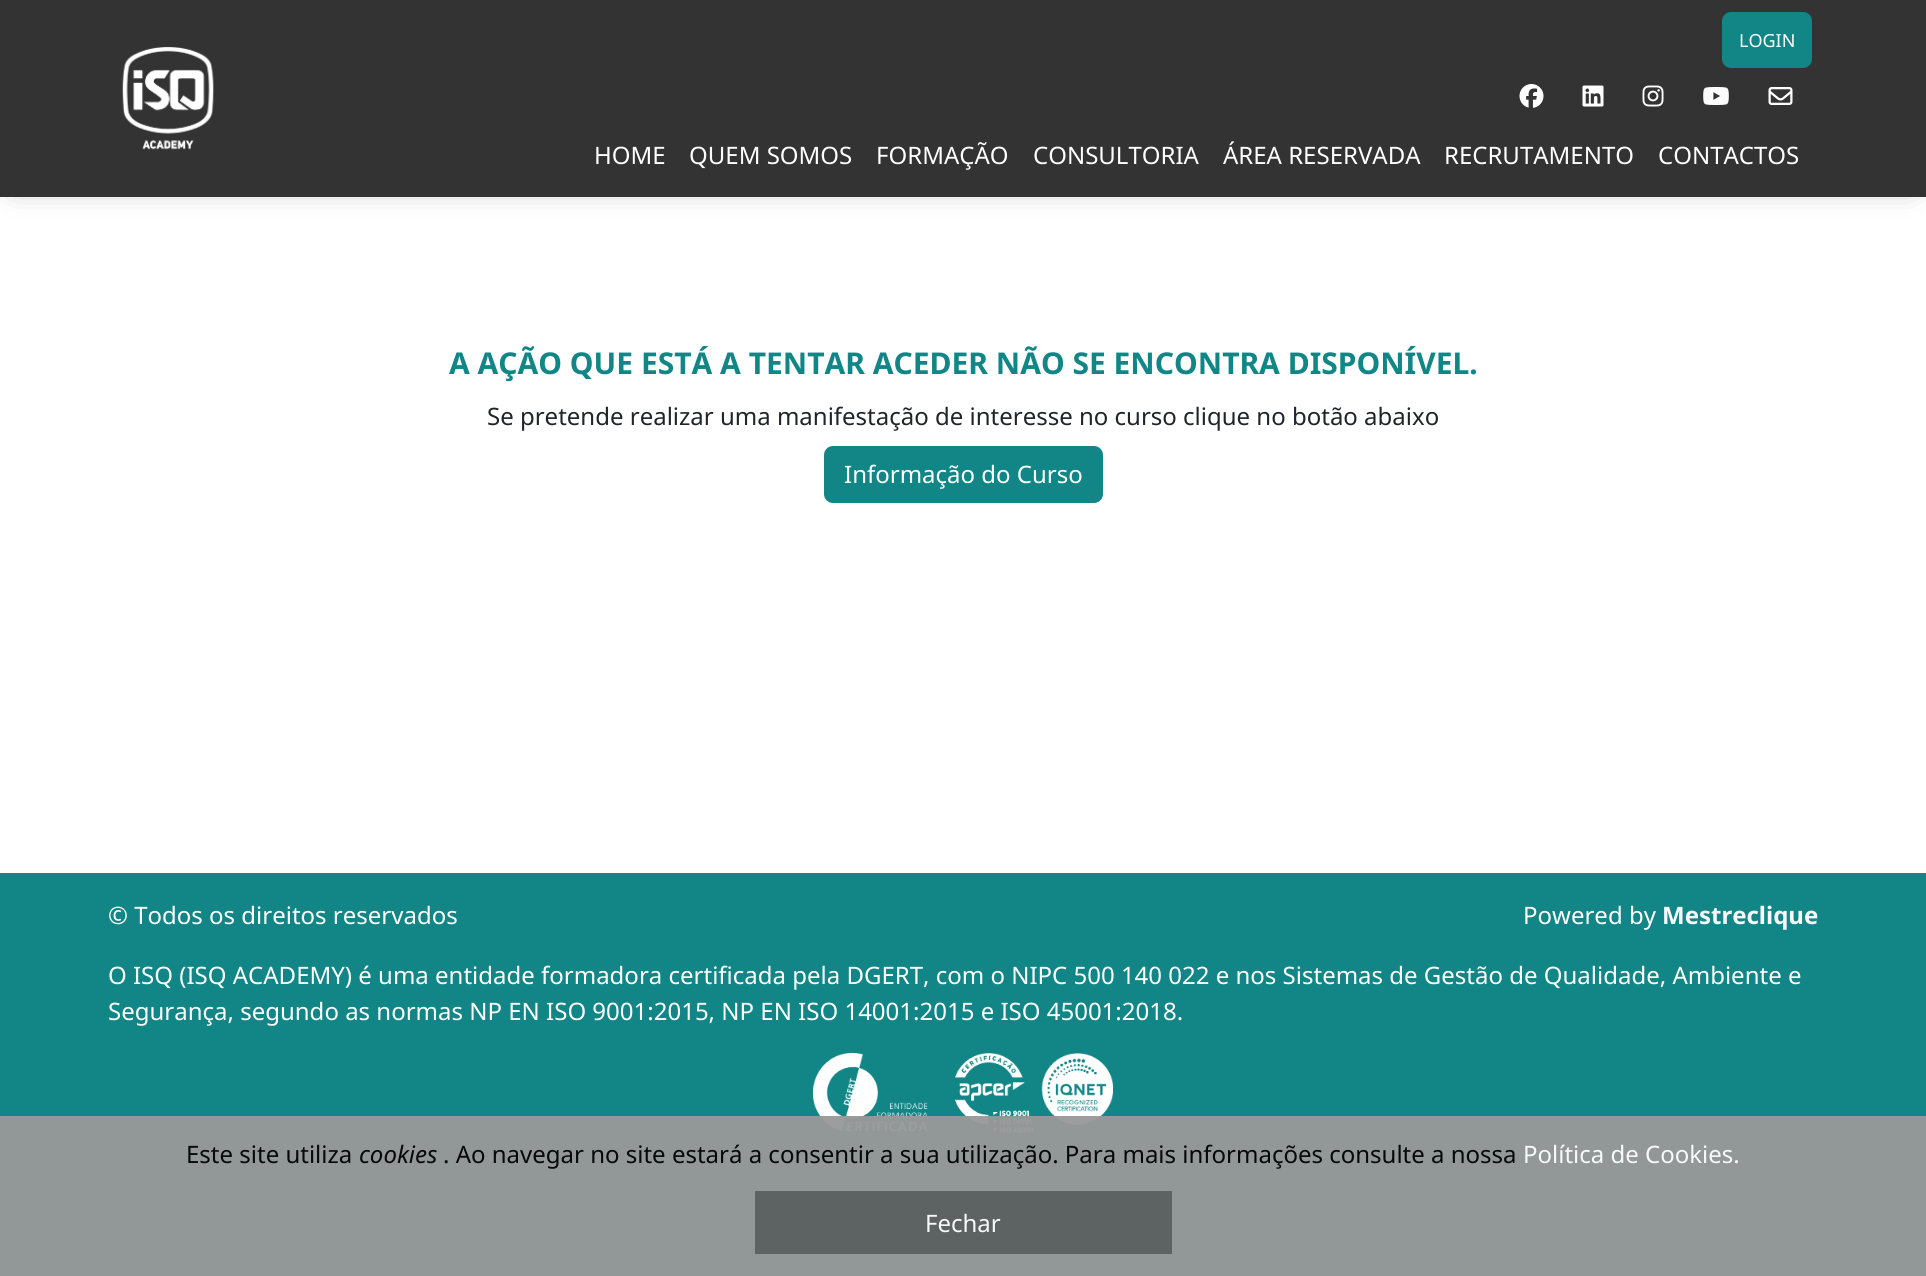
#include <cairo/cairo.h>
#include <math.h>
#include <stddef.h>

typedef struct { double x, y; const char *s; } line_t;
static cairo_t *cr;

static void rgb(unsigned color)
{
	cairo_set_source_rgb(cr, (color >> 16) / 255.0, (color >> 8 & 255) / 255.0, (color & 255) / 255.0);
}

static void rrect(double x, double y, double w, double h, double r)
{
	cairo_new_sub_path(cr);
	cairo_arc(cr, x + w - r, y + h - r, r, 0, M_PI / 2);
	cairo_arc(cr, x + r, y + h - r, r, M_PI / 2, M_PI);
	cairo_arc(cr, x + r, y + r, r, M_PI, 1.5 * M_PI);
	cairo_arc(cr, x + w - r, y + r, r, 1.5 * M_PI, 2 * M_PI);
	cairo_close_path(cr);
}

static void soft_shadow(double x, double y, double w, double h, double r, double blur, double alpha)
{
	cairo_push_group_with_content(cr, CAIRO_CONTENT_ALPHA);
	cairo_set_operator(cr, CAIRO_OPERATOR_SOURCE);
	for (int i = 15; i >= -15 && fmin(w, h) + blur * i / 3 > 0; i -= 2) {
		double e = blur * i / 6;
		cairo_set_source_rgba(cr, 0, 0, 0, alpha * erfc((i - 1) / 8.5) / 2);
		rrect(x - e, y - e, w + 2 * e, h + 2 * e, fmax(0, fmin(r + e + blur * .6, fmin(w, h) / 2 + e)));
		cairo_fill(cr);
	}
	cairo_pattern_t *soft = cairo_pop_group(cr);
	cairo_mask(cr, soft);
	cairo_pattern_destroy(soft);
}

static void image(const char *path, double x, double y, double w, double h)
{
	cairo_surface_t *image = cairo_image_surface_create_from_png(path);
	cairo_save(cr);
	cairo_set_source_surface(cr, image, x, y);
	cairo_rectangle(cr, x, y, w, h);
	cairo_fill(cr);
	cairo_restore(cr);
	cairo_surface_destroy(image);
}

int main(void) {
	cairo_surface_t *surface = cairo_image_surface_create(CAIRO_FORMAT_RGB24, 1926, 1276);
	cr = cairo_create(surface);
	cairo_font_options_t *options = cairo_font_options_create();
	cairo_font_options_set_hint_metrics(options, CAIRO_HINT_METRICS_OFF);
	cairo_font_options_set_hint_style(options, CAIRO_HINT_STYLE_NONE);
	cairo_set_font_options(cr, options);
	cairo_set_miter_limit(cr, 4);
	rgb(0xffffff);
	cairo_paint(cr);
	cairo_save(cr);
	cairo_set_fill_rule(cr, CAIRO_FILL_RULE_EVEN_ODD);
	cairo_new_path(cr);
	cairo_move_to(cr, 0, 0);
	cairo_line_to(cr, 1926, 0);
	cairo_line_to(cr, 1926, 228);
	cairo_line_to(cr, 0, 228);
	cairo_close_path(cr);
	cairo_move_to(cr, 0, 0);
	cairo_line_to(cr, 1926, 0);
	cairo_line_to(cr, 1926, 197);
	cairo_line_to(cr, 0, 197);
	cairo_close_path(cr);
	cairo_clip(cr);
	rgb(0x858585);
	soft_shadow(15, 15, 1896, 167, 0, 15, 1);
	cairo_restore(cr);
	cairo_set_source_rgba(cr, 0, 0, 0, 0.8);
	cairo_rectangle(cr, 0, 0, 1926, 197);
	cairo_fill(cr);
	image("img/1.png", 122, 47, 92, 103);
	rgb(0x128686);
	rrect(1723, 13, 88, 54, 8);
	cairo_fill_preserve(cr);
	cairo_stroke(cr);
	image("img/2.png", 1519, 84, 25, 24);
	image("img/3.png", 1582, 85, 22, 22);
	image("img/4.png", 1642, 85, 22, 22);
	image("img/5.png", 1703, 87, 26, 18);
	image("img/6.png", 1768, 87, 25, 18);
	rrect(825, 447, 277, 55, 8);
	cairo_fill_preserve(cr);
	cairo_stroke(cr);
	cairo_rectangle(cr, 0, 873, 1926, 403);
	cairo_fill(cr);
	image("img/7.png", 813, 1053, 300, 80);
	cairo_set_source_rgba(cr, 0.6, 0.6, 0.6, 0.95);
	cairo_rectangle(cr, 0, 1116, 1926, 160);
	cairo_fill(cr);
	rgb(0x5d6363);
	cairo_rectangle(cr, 755, 1191, 417, 63);
	cairo_fill(cr);
	cairo_select_font_face(cr, "Noto Sans", CAIRO_FONT_SLANT_NORMAL, CAIRO_FONT_WEIGHT_NORMAL);
	cairo_set_font_size(cr, 18);
	rgb(0xffffff);
	cairo_move_to(cr, 1739, 47);
	cairo_show_text(cr, "LOGIN");
	cairo_set_font_size(cr, 24);
	{
		static const line_t items[] = {
			{594, 164, "HOME"},
			{689, 164, "QUEM SOMOS"},
			{876, 164, "FORMAÇÃO"},
			{1033, 164, "CONSULTORIA"},
			{1223, 164, "ÁREA RESERVADA"},
			{1444, 164, "RECRUTAMENTO"},
			{1658, 164, "CONTACTOS"},
		};
		for (size_t i = 0; i < sizeof items / sizeof *items; i++) {
			cairo_move_to(cr, items[i].x, items[i].y);
			cairo_show_text(cr, items[i].s);
		}
	}
	cairo_select_font_face(cr, "Noto Sans", CAIRO_FONT_SLANT_NORMAL, CAIRO_FONT_WEIGHT_BOLD);
	cairo_set_font_size(cr, 30);
	rgb(0x128686);
	cairo_move_to(cr, 449, 374);
	cairo_show_text(cr, "A AÇÃO QUE ESTÁ A TENTAR ACEDER NÃO SE ENCONTRA DISPONÍVEL.");
	cairo_select_font_face(cr, "Noto Sans", CAIRO_FONT_SLANT_NORMAL, CAIRO_FONT_WEIGHT_NORMAL);
	cairo_set_font_size(cr, 24);
	rgb(0x212529);
	cairo_move_to(cr, 487, 425);
	cairo_show_text(cr, "Se pretende realizar uma manifestação de interesse no curso clique no botão abaixo");
	rgb(0xffffff);
	cairo_move_to(cr, 844, 483);
	cairo_show_text(cr, "Informação do Curso");
	rgb(0x070808);
	cairo_move_to(cr, 186, 1163);
	cairo_show_text(cr, "Este site utiliza");
	cairo_select_font_face(cr, "Noto Sans", CAIRO_FONT_SLANT_ITALIC, CAIRO_FONT_WEIGHT_NORMAL);
	cairo_move_to(cr, 359, 1163);
	cairo_show_text(cr, "cookies");
	cairo_select_font_face(cr, "Noto Sans", CAIRO_FONT_SLANT_NORMAL, CAIRO_FONT_WEIGHT_NORMAL);
	cairo_move_to(cr, 443, 1163);
	cairo_show_text(cr, ". Ao navegar no site estará a consentir a sua utilização. Para mais informações consulte a nossa");
	rgb(0xf8f9fa);
	cairo_move_to(cr, 1523, 1163);
	cairo_show_text(cr, "Política de Cookies.");
	cairo_move_to(cr, 925, 1232);
	cairo_show_text(cr, "Fechar");
	rgb(0xffffff);
	cairo_move_to(cr, 108, 924);
	cairo_show_text(cr, "© Todos os direitos reservados");
	cairo_move_to(cr, 1523, 924);
	cairo_show_text(cr, "Powered by");
	cairo_select_font_face(cr, "Noto Sans", CAIRO_FONT_SLANT_NORMAL, CAIRO_FONT_WEIGHT_BOLD);
	rgb(0xf8f9fa);
	cairo_move_to(cr, 1662, 924);
	cairo_show_text(cr, "Mestreclique");
	cairo_select_font_face(cr, "Noto Sans", CAIRO_FONT_SLANT_NORMAL, CAIRO_FONT_WEIGHT_NORMAL);
	rgb(0xffffff);
	cairo_move_to(cr, 108, 984);
	cairo_show_text(cr, "O ISQ (ISQ ACADEMY) é uma entidade formadora certificada pela DGERT, com o NIPC 500 140 022 e nos Sistemas de Gestão de Qualidade, Ambiente e");
	cairo_move_to(cr, 108, 1020);
	cairo_show_text(cr, "Segurança, segundo as normas NP EN ISO 9001:2015, NP EN ISO 14001:2015 e ISO 45001:2018.");
	cairo_surface_write_to_png(surface, "page.png");
	cairo_font_options_destroy(options);
	cairo_destroy(cr);
	cairo_surface_destroy(surface);
	return 0;
}
